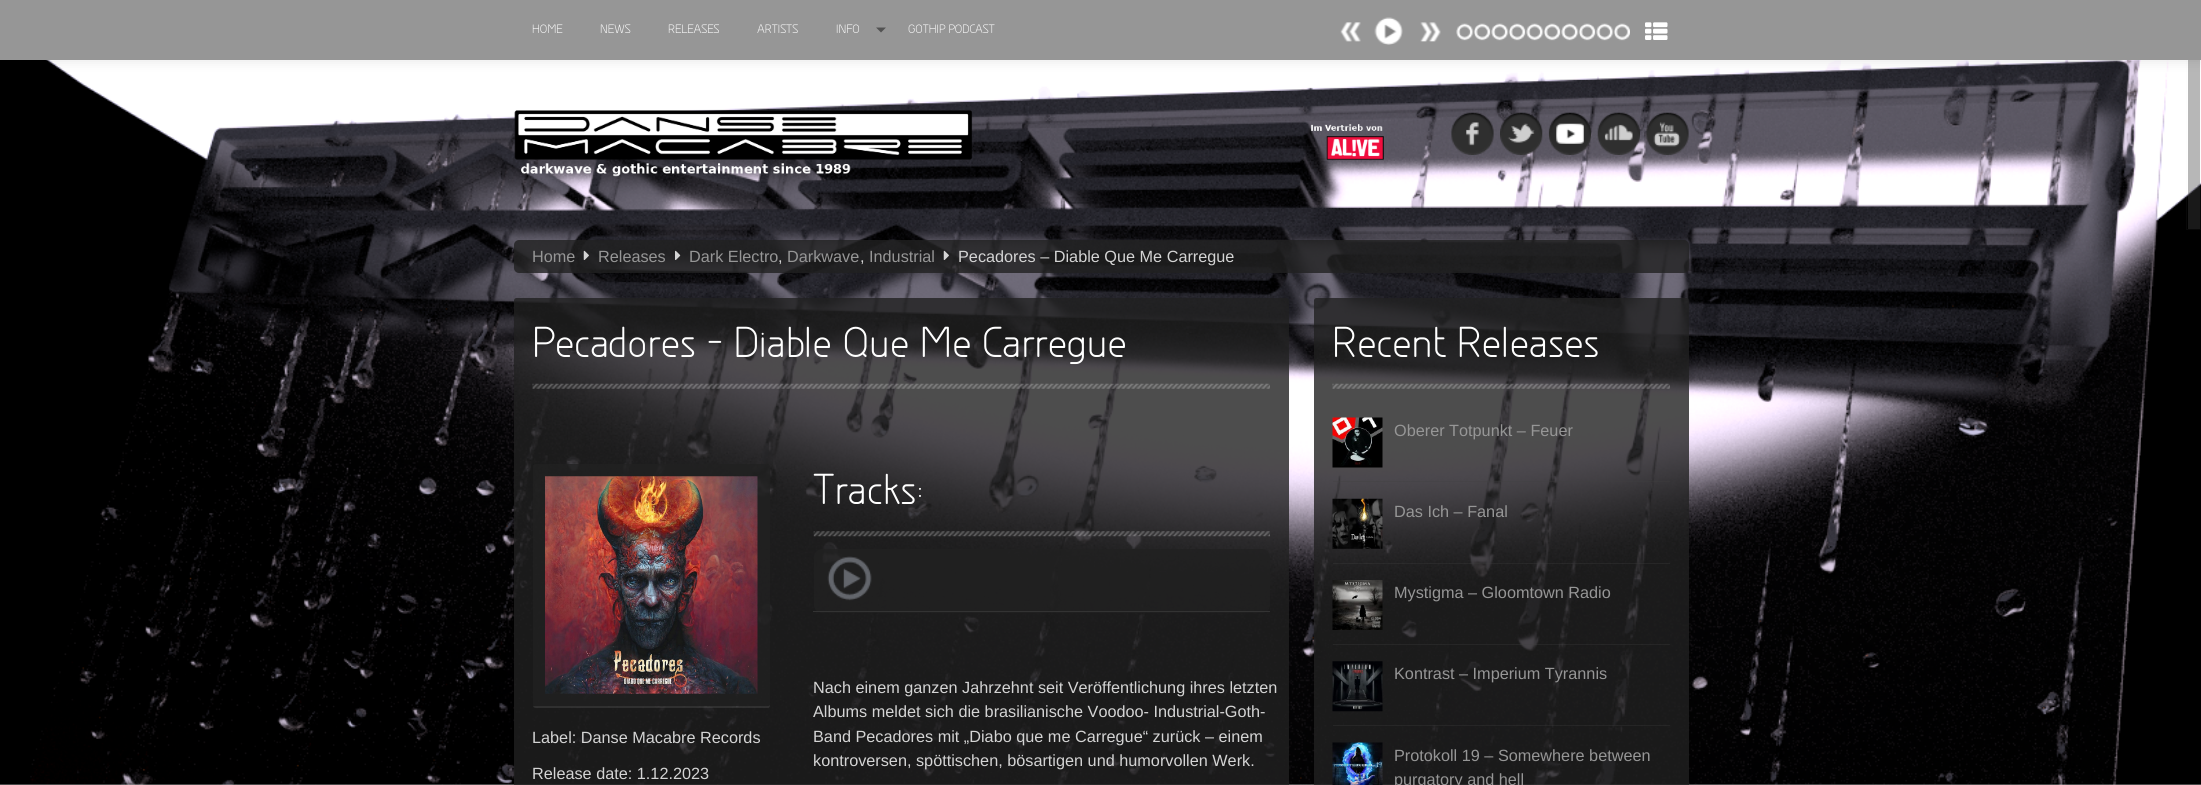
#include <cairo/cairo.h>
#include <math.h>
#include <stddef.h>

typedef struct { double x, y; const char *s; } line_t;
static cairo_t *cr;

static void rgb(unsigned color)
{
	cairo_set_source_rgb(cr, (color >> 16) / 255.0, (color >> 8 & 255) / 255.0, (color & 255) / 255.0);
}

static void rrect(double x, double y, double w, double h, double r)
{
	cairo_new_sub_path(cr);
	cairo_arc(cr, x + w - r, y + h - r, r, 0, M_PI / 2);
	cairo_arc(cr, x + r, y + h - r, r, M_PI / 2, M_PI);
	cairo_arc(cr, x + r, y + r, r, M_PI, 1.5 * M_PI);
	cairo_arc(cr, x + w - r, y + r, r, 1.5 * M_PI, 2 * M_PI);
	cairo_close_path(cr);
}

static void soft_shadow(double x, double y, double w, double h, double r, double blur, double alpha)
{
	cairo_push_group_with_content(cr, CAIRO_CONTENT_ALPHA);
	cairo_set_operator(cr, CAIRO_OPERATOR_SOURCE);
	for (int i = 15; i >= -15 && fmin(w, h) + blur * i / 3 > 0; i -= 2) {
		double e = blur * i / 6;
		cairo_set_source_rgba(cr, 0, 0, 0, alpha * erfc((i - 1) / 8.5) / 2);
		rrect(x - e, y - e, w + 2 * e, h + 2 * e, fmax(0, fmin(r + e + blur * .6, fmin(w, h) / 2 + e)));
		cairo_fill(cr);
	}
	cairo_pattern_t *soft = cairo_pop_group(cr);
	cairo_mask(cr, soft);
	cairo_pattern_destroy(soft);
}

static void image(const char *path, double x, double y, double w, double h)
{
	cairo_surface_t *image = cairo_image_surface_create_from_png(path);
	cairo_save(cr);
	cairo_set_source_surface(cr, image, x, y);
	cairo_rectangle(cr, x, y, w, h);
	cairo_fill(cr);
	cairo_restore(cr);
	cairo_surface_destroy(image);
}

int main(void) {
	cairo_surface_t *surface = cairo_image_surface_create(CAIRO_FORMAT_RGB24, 2201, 785);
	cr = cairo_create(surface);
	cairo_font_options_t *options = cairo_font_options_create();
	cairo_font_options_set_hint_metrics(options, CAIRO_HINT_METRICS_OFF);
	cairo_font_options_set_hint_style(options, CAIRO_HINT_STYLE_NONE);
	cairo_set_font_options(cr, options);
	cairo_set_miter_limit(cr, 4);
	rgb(0xffffff);
	cairo_paint(cr);
	image("img/1.png", 0, 60, 2201, 725);
	cairo_set_source_rgba(cr, 0.259, 0.259, 0.259, 0.38);
	cairo_rectangle(cr, 2188, 60, 12, 169);
	cairo_fill(cr);
	cairo_rectangle(cr, 2186.5, 0.5, 14, 229);
	cairo_set_source_rgba(cr, 0.784, 0.784, 0.784, 0.04);
	cairo_set_line_width(cr, 1);
	cairo_stroke(cr);
	rgb(0x000000);
	soft_shadow(0, 1, 2201, 60, 0, 6, 0.1);
	rgb(0x969696);
	cairo_rectangle(cr, 0, 0, 2201, 60);
	cairo_fill(cr);
	rgb(0x525252);
	cairo_new_path(cr);
	cairo_move_to(cr, 876, 27.5);
	cairo_line_to(cr, 886, 27.5);
	cairo_line_to(cr, 881, 32.5);
	cairo_close_path(cr);
	cairo_fill(cr);
	image("img/2.png", 1340, 22, 21, 20);
	image("img/3.png", 1374, 17, 29, 28);
	image("img/4.png", 1420, 22, 21, 20);
	image("img/5.png", 1456, 23, 174, 18);
	image("img/6.png", 1645, 22, 23, 18);
	image("img/7.png", 514, 110, 870, 67);
	image("img/8.png", 1451, 112, 43, 43);
	image("img/9.png", 1500, 112, 43, 43);
	image("img/10.png", 1548, 112, 44, 43);
	image("img/11.png", 1597, 112, 43, 43);
	image("img/12.png", 1646, 112, 43, 43);
	cairo_set_source_rgba(cr, 0.129, 0.129, 0.129, 0.8);
	rrect(514, 240, 1175, 33, 5);
	cairo_fill(cr);
	image("img/13.png", 583, 250, 6, 10);
	image("img/14.png", 675, 250, 6, 10);
	image("img/15.png", 943, 250, 6, 10);
	rrect(514, 298, 775, 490, 2.5);
	cairo_fill(cr);
	image("img/16.png", 532, 383, 738, 6);
	cairo_set_source_rgba(cr, 1, 1, 1, 0.1);
	cairo_new_path(cr);
	cairo_move_to(cr, 533, 705);
	cairo_curve_to(cr, 533, 707, 534, 708, 536, 708);
	cairo_line_to(cr, 768, 708);
	cairo_curve_to(cr, 770, 708, 770, 705, 770, 704);
	cairo_curve_to(cr, 770, 705, 769, 706, 768, 706);
	cairo_line_to(cr, 535, 706);
	cairo_curve_to(cr, 534, 706, 533, 706, 533, 705);
	cairo_close_path(cr);
	cairo_fill(cr);
	cairo_set_source_rgba(cr, 0.129, 0.129, 0.129, 0.8);
	rrect(533, 464, 237, 242, 2.5);
	cairo_fill(cr);
	image("img/17.png", 545, 476, 213, 218);
	image("img/18.png", 813, 531, 457, 6);
	rrect(814, 549, 456, 64, 8);
	cairo_fill(cr);
	rgb(0x333333);
	cairo_rectangle(cr, 813, 611, 457, 1);
	cairo_fill(cr);
	image("img/19.png", 827, 556, 45, 45);
	cairo_set_source_rgba(cr, 0.129, 0.129, 0.129, 0.8);
	rrect(1314, 298, 375, 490, 2.5);
	cairo_fill(cr);
	image("img/20.png", 1332, 383, 338, 6);
	cairo_set_source_rgba(cr, 0.259, 0.259, 0.259, 0.3);
	cairo_rectangle(cr, 1333, 481, 337, 1);
	cairo_fill(cr);
	image("img/21.png", 1332, 417, 51, 51);
	cairo_rectangle(cr, 1333, 563, 337, 1);
	cairo_fill(cr);
	image("img/22.png", 1332, 498, 51, 51);
	cairo_rectangle(cr, 1333, 644, 337, 1);
	cairo_fill(cr);
	image("img/23.png", 1332, 580, 51, 50);
	cairo_rectangle(cr, 1333, 725, 337, 1);
	cairo_fill(cr);
	image("img/24.png", 1332, 661, 51, 51);
	image("img/25.png", 1332, 742, 51, 43);
	cairo_select_font_face(cr, "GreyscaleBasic", CAIRO_FONT_SLANT_NORMAL, CAIRO_FONT_WEIGHT_NORMAL);
	cairo_set_font_size(cr, 11.25);
	rgb(0xffffff);
	{
		static const line_t items[] = {
			{532, 33, "HOME"},
			{600, 33, "NEWS"},
			{668, 33, "RELEASES"},
			{757, 33, "ARTISTS"},
			{836, 33, "INFO"},
			{908, 33, "GOTHIP PODCAST"},
		};
		for (size_t i = 0; i < sizeof items / sizeof *items; i++) {
			cairo_move_to(cr, items[i].x, items[i].y);
			cairo_show_text(cr, items[i].s);
		}
	}
	cairo_select_font_face(cr, "Liberation Sans", CAIRO_FONT_SLANT_NORMAL, CAIRO_FONT_WEIGHT_NORMAL);
	cairo_set_font_size(cr, 16.25);
	rgb(0x969696);
	{
		static const line_t items[] = {
			{532, 262, "Home"},
			{598, 262, "Releases"},
			{689, 262, "Dark Electro"},
		};
		for (size_t i = 0; i < sizeof items / sizeof *items; i++) {
			cairo_move_to(cr, items[i].x, items[i].y);
			cairo_show_text(cr, items[i].s);
		}
	}
	rgb(0xd4d4d4);
	cairo_move_to(cr, 778, 262);
	cairo_show_text(cr, ",");
	rgb(0x969696);
	cairo_move_to(cr, 787, 262);
	cairo_show_text(cr, "Darkwave");
	rgb(0xd4d4d4);
	cairo_move_to(cr, 860, 262);
	cairo_show_text(cr, ",");
	rgb(0x969696);
	cairo_move_to(cr, 869, 262);
	cairo_show_text(cr, "Industrial");
	rgb(0xd4d4d4);
	cairo_move_to(cr, 958, 262);
	cairo_show_text(cr, "Pecadores – Diable Que Me Carregue");
	cairo_select_font_face(cr, "GreyscaleBasic", CAIRO_FONT_SLANT_NORMAL, CAIRO_FONT_WEIGHT_NORMAL);
	cairo_set_font_size(cr, 40);
	rgb(0xffffff);
	cairo_move_to(cr, 532, 357);
	cairo_show_text(cr, "Pecadores – Diable Que Me Carregue");
	cairo_select_font_face(cr, "Liberation Sans", CAIRO_FONT_SLANT_NORMAL, CAIRO_FONT_WEIGHT_NORMAL);
	cairo_set_font_size(cr, 16.25);
	rgb(0xd4d4d4);
	cairo_move_to(cr, 532, 743);
	cairo_show_text(cr, "Label: Danse Macabre Records");
	cairo_move_to(cr, 532, 779);
	cairo_show_text(cr, "Release date: 1.12.2023");
	cairo_select_font_face(cr, "GreyscaleBasic", CAIRO_FONT_SLANT_NORMAL, CAIRO_FONT_WEIGHT_NORMAL);
	cairo_set_font_size(cr, 40);
	rgb(0xffffff);
	cairo_move_to(cr, 813, 504);
	cairo_show_text(cr, "Tracks:");
	cairo_select_font_face(cr, "Liberation Sans", CAIRO_FONT_SLANT_NORMAL, CAIRO_FONT_WEIGHT_NORMAL);
	cairo_set_font_size(cr, 16.25);
	rgb(0xd4d4d4);
	{
		static const line_t items[] = {
			{813, 693, "Nach einem ganzen Jahrzehnt seit Veröffentlichung ihres letzten"},
			{813, 717, "Albums meldet sich die brasilianische Voodoo- Industrial-Goth-"},
			{813, 742, "Band Pecadores mit „Diabo que me Carregue“ zurück – einem"},
			{813, 766, "kontroversen, spöttischen, bösartigen und humorvollen Werk."},
		};
		for (size_t i = 0; i < sizeof items / sizeof *items; i++) {
			cairo_move_to(cr, items[i].x, items[i].y);
			cairo_show_text(cr, items[i].s);
		}
	}
	cairo_select_font_face(cr, "GreyscaleBasic", CAIRO_FONT_SLANT_NORMAL, CAIRO_FONT_WEIGHT_NORMAL);
	cairo_set_font_size(cr, 40);
	rgb(0xffffff);
	cairo_move_to(cr, 1332, 357);
	cairo_show_text(cr, "Recent Releases");
	cairo_select_font_face(cr, "Liberation Sans", CAIRO_FONT_SLANT_NORMAL, CAIRO_FONT_WEIGHT_NORMAL);
	cairo_set_font_size(cr, 16.25);
	rgb(0x969696);
	{
		static const line_t items[] = {
			{1394, 436, "Oberer Totpunkt – Feuer"},
			{1394, 517, "Das Ich – Fanal"},
			{1394, 598, "Mystigma – Gloomtown Radio"},
			{1394, 679, "Kontrast – Imperium Tyrannis"},
			{1394, 761, "Protokoll 19 – Somewhere between"},
			{1394, 785, "purgatory and hell"},
		};
		for (size_t i = 0; i < sizeof items / sizeof *items; i++) {
			cairo_move_to(cr, items[i].x, items[i].y);
			cairo_show_text(cr, items[i].s);
		}
	}
	cairo_surface_write_to_png(surface, "page.png");
	cairo_font_options_destroy(options);
	cairo_destroy(cr);
	cairo_surface_destroy(surface);
	return 0;
}
